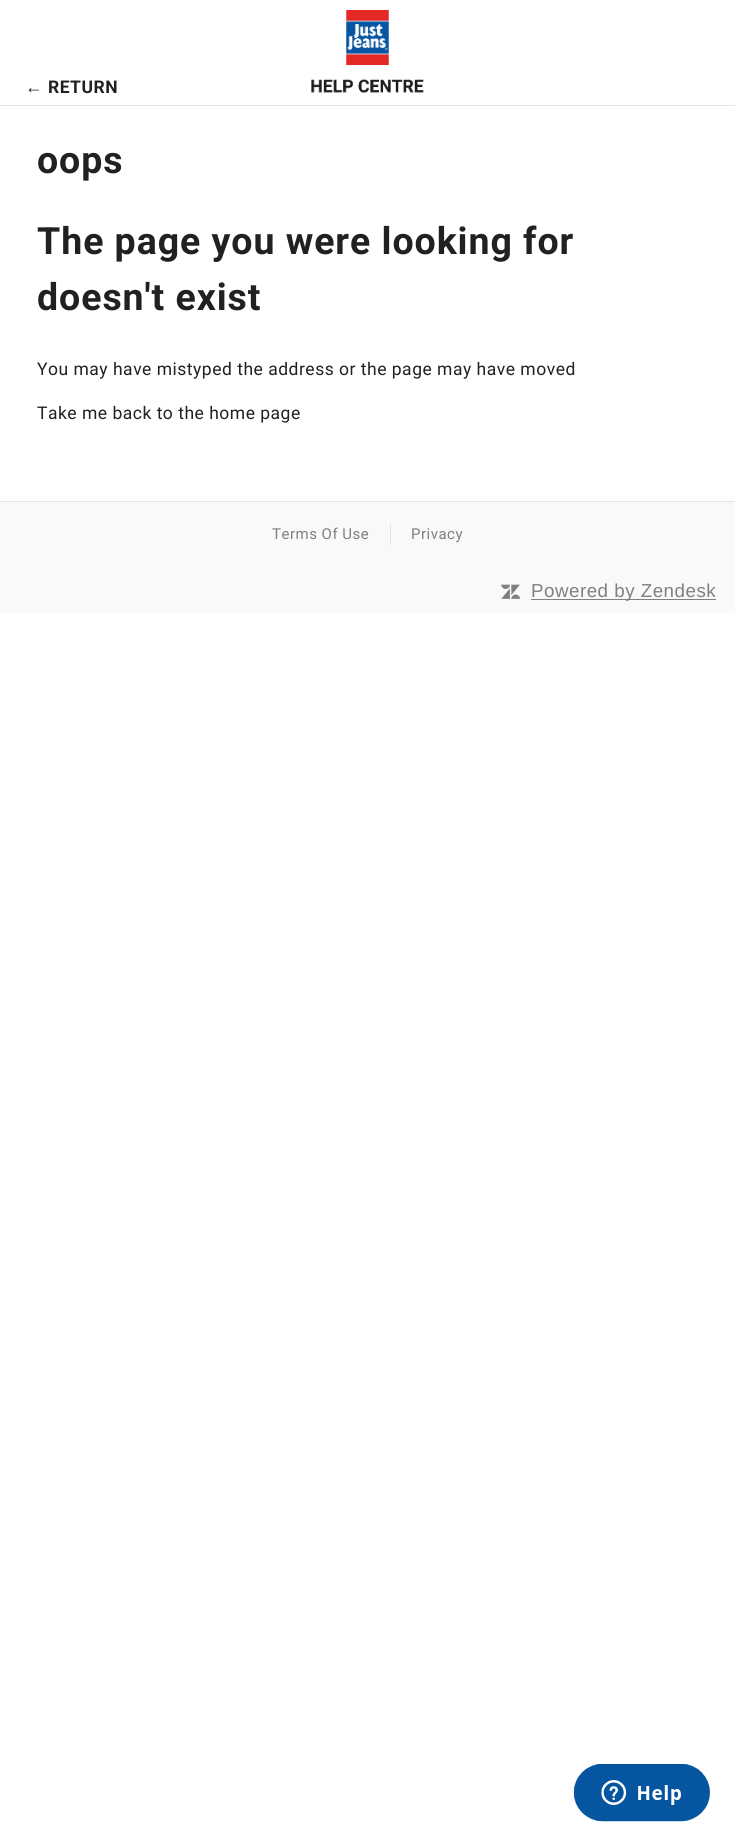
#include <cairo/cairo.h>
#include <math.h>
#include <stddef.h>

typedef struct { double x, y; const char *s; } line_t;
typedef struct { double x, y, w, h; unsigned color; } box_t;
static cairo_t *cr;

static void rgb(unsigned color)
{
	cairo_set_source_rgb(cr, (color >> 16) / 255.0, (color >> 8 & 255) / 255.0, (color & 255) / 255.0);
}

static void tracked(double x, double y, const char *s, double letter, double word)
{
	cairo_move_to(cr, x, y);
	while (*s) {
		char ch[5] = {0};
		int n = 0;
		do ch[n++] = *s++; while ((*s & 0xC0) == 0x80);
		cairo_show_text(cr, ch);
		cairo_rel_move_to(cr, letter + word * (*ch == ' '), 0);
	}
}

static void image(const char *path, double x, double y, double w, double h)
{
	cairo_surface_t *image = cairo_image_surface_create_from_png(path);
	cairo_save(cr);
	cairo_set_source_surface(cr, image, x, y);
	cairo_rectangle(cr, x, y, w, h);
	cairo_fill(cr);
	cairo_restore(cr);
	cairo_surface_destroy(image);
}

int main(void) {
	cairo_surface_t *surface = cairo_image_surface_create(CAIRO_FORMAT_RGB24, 735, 1838);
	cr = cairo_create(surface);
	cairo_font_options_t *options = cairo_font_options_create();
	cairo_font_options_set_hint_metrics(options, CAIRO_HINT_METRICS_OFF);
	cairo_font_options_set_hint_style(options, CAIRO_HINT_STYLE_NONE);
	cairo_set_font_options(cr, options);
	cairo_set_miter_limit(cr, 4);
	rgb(0xffffff);
	cairo_paint(cr);
	image("img/1.png", 346, 10, 43, 55);
	image("img/2.png", 311, 79, 113, 14);
	{
		static const box_t items[] = {
			{0, 105, 735, 1, 0xe5e5e5},
			{0, 502, 735, 111, 0xf9f9f9},
			{0, 501, 735, 1, 0xe5e5e5},
			{390, 523, 1, 22, 0xe5e5e5},
		};
		for (size_t i = 0; i < sizeof items / sizeof *items; i++) {
			rgb(items[i].color);
			cairo_rectangle(cr, items[i].x, items[i].y, items[i].w, items[i].h);
			cairo_fill(cr);
		}
	}
	image("img/3.png", 501, 584, 19, 15);
	rgb(0x808080);
	cairo_rectangle(cr, 531, 599, 185, 1);
	cairo_fill(cr);
	image("img/4.png", 574, 1764, 136, 58);
	cairo_select_font_face(cr, "Liberation Sans", CAIRO_FONT_SLANT_NORMAL, CAIRO_FONT_WEIGHT_BOLD);
	cairo_set_font_size(cr, 17.5);
	rgb(0x212121);
	tracked(25, 93, "←", 0.5, 0);
	cairo_select_font_face(cr, "Roboto", CAIRO_FONT_SLANT_NORMAL, CAIRO_FONT_WEIGHT_BOLD);
	tracked(48, 93, "RETURN", 0.5, 0);
	cairo_set_font_size(cr, 37.5);
	{
		static const line_t items[] = {
			{37, 173, "oops"},
			{37, 254, "The page you were looking for"},
			{37, 310, "doesn't exist"},
		};
		for (size_t i = 0; i < sizeof items / sizeof *items; i++) {
			tracked(items[i].x, items[i].y, items[i].s, 0.95, 0);
		}
	}
	cairo_select_font_face(cr, "Roboto", CAIRO_FONT_SLANT_NORMAL, CAIRO_FONT_WEIGHT_NORMAL);
	cairo_set_font_size(cr, 17.5);
	tracked(37, 375, "You may have mistyped the address or the page may have moved", 0.5, 0);
	tracked(37, 419, "Take me back to the home page", 0.5, 0);
	cairo_set_font_size(cr, 15);
	rgb(0x808080);
	tracked(272, 539, "Terms Of Use", 0.5, 0);
	tracked(411, 539, "Privacy", 0.5, 0);
	cairo_select_font_face(cr, "Liberation Sans", CAIRO_FONT_SLANT_NORMAL, CAIRO_FONT_WEIGHT_NORMAL);
	cairo_set_font_size(cr, 18.75);
	tracked(531, 597, "Powered by Zendesk", 0.5, 0);
	cairo_surface_write_to_png(surface, "page.png");
	cairo_font_options_destroy(options);
	cairo_destroy(cr);
	cairo_surface_destroy(surface);
	return 0;
}
